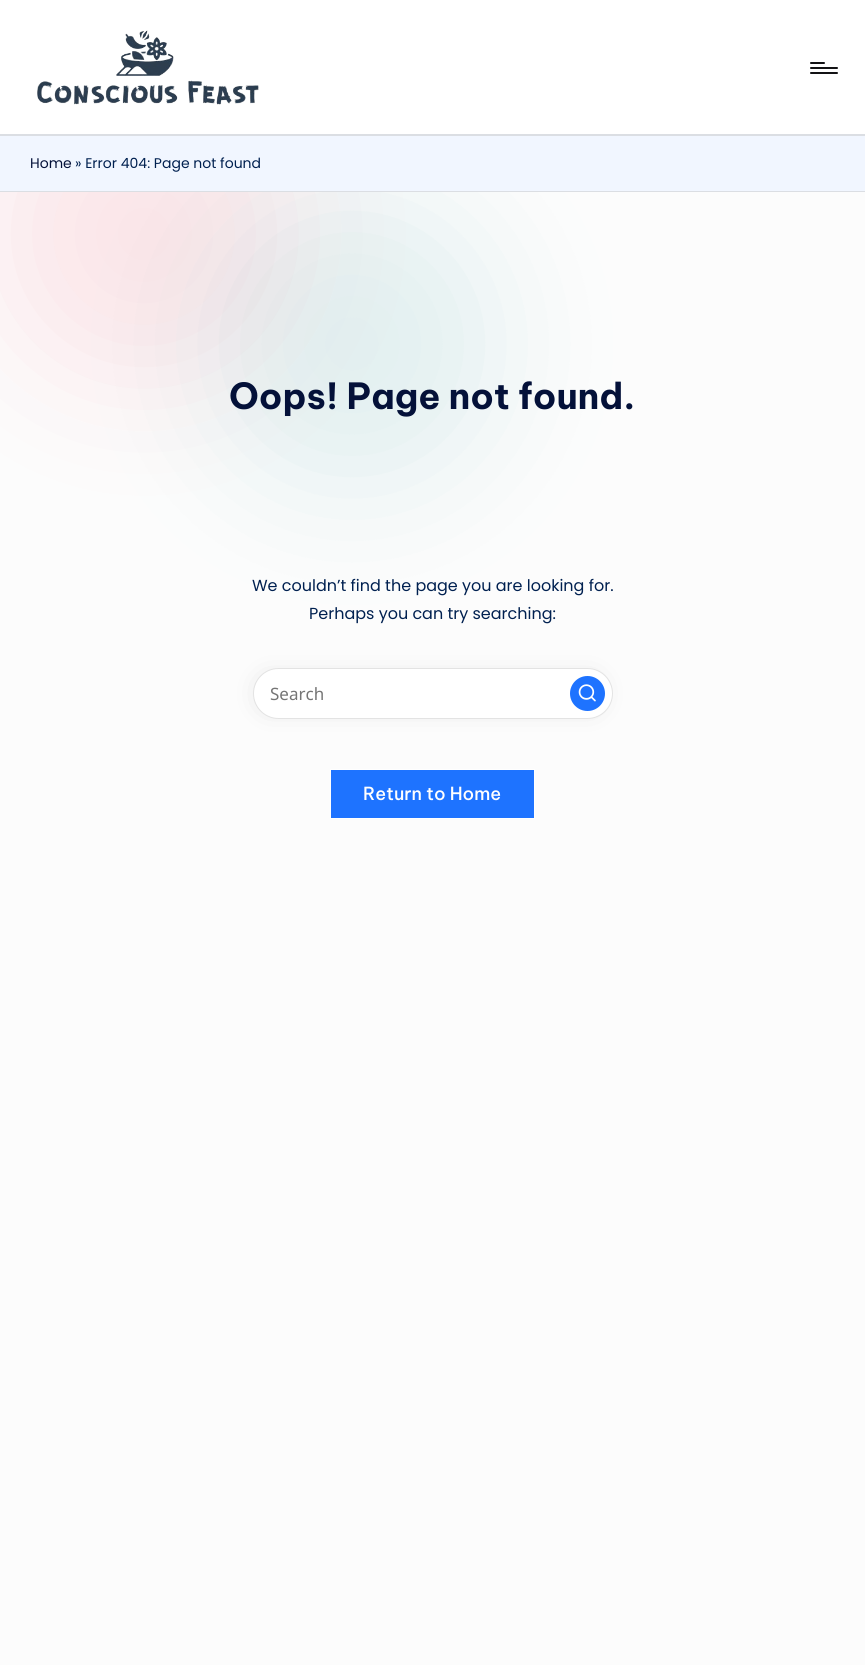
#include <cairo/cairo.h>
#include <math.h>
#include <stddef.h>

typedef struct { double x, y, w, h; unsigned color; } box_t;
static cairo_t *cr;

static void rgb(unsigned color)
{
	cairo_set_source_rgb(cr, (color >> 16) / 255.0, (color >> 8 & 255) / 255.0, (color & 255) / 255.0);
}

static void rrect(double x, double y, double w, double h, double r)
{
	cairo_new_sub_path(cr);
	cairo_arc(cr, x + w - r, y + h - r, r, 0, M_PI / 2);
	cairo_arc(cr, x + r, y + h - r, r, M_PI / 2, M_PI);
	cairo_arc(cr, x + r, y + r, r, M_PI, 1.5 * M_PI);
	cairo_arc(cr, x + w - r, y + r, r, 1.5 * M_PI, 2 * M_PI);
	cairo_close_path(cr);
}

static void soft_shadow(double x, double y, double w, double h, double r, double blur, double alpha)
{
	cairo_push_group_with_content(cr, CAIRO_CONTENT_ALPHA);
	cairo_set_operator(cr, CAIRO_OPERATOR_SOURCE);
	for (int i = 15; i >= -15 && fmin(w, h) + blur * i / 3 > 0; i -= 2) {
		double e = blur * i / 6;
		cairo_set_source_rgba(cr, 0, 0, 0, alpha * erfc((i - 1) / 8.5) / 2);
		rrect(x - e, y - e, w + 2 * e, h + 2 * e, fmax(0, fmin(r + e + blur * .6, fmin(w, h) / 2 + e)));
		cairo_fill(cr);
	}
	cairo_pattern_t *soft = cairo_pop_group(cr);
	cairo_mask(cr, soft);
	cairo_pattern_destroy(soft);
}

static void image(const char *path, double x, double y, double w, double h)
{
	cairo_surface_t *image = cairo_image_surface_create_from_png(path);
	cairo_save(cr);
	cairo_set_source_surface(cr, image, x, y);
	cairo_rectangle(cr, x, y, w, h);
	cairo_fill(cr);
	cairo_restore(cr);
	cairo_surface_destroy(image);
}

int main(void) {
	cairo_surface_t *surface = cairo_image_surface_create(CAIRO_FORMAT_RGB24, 865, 1665);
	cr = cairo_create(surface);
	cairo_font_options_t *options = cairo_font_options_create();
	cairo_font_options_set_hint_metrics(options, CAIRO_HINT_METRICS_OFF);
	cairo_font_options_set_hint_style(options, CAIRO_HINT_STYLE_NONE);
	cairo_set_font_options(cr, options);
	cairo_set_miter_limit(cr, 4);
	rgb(0xfcfcfc);
	cairo_paint(cr);
	rgb(0xfbe6e9);
	soft_shadow(0, 90, 288, 288, 144, 64, 1);
	rgb(0x04868b);
	soft_shadow(208, 200, 288, 288, 144, 64, 0.1);
	rgb(0xffffff);
	cairo_rectangle(cr, 0, 0, 865, 134);
	cairo_fill(cr);
	image("img/1.png", 37, 30, 222, 75);
	rgb(0x131315);
	rrect(810, 67, 28, 2, 1);
	cairo_fill(cr);
	rrect(810, 62, 15, 2, 1);
	cairo_fill(cr);
	rrect(810, 72, 28, 2, 1);
	cairo_fill(cr);
	{
		static const box_t items[] = {
			{0, 136, 865, 55, 0xf1f6ff},
			{0, 134, 865, 2, 0xdbdee3},
			{0, 191, 865, 1, 0xdbdee3},
		};
		for (size_t i = 0; i < sizeof items / sizeof *items; i++) {
			rgb(items[i].color);
			cairo_rectangle(cr, items[i].x, items[i].y, items[i].w, items[i].h);
			cairo_fill(cr);
		}
	}
	rgb(0x000000);
	soft_shadow(266, 684, 328, 19, 9.5, 16, 0.15);
	rgb(0xffffff);
	rrect(253.5, 668.5, 359, 50, 25);
	cairo_fill_preserve(cr);
	rgb(0xe3e3e3);
	cairo_set_line_width(cr, 1);
	cairo_stroke(cr);
	rgb(0x1e73ff);
	cairo_arc(cr, 587.5, 693.5, 17.5, 0, 2 * M_PI);
	cairo_fill(cr);
	image("img/2.png", 578, 684, 18, 18);
	cairo_rectangle(cr, 330.5, 769.5, 204, 49);
	cairo_fill_preserve(cr);
	rgb(0xffffff);
	cairo_stroke(cr);
	cairo_select_font_face(cr, "Poppins", CAIRO_FONT_SLANT_NORMAL, CAIRO_FONT_WEIGHT_NORMAL);
	cairo_set_font_size(cr, 14);
	rgb(0x041139);
	cairo_move_to(cr, 30, 168);
	cairo_show_text(cr, "Home");
	rgb(0x002050);
	cairo_move_to(cr, 75, 168);
	cairo_show_text(cr, "» Error 404: Page not found");
	cairo_select_font_face(cr, "Be Vietnam Pro", CAIRO_FONT_SLANT_NORMAL, CAIRO_FONT_WEIGHT_BOLD);
	cairo_set_font_size(cr, 36);
	rgb(0x041139);
	cairo_move_to(cr, 229, 409);
	cairo_show_text(cr, "Oops! Page not found.");
	cairo_select_font_face(cr, "Poppins", CAIRO_FONT_SLANT_NORMAL, CAIRO_FONT_WEIGHT_NORMAL);
	cairo_set_font_size(cr, 16);
	rgb(0x002050);
	cairo_move_to(cr, 252, 591);
	cairo_show_text(cr, "We couldn’t find the page you are looking for.");
	cairo_move_to(cr, 309, 619);
	cairo_show_text(cr, "Perhaps you can try searching:");
	cairo_select_font_face(cr, "Noto Sans", CAIRO_FONT_SLANT_NORMAL, CAIRO_FONT_WEIGHT_NORMAL);
	cairo_set_font_size(cr, 17);
	rgb(0x757575);
	cairo_move_to(cr, 270, 700);
	cairo_show_text(cr, "Search");
	cairo_select_font_face(cr, "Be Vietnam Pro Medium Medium", CAIRO_FONT_SLANT_NORMAL, CAIRO_FONT_WEIGHT_NORMAL);
	cairo_set_font_size(cr, 18);
	rgb(0xffffff);
	cairo_move_to(cr, 363, 800);
	cairo_show_text(cr, "Return to Home");
	cairo_surface_write_to_png(surface, "page.png");
	cairo_font_options_destroy(options);
	cairo_destroy(cr);
	cairo_surface_destroy(surface);
	return 0;
}
